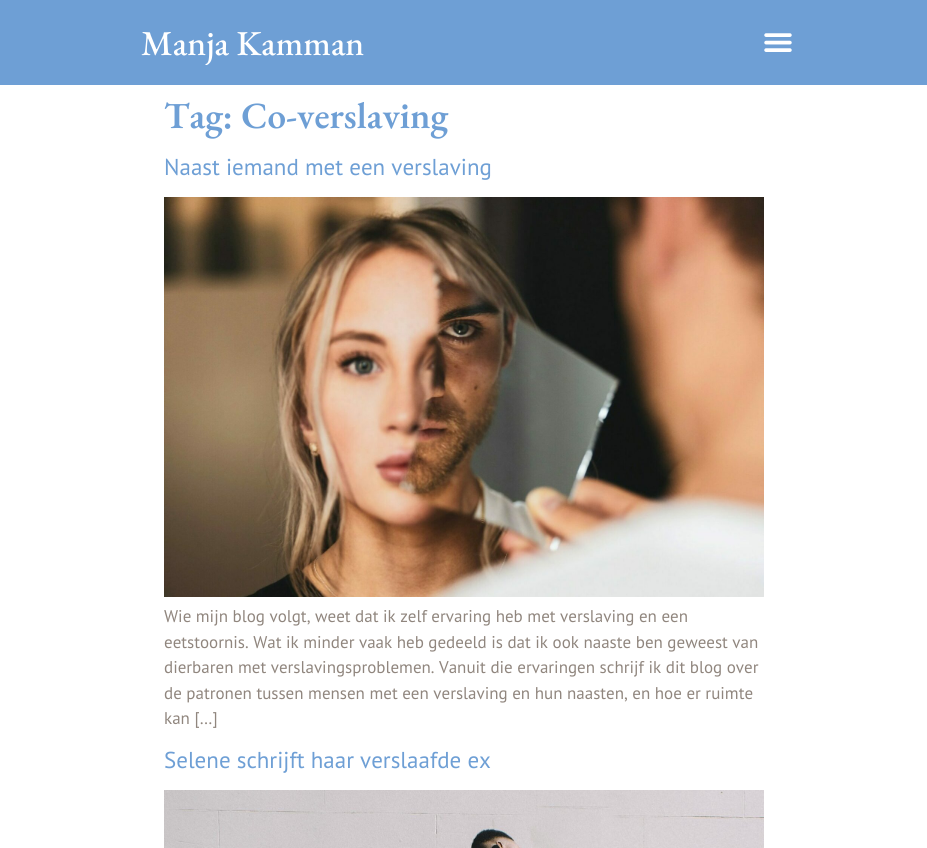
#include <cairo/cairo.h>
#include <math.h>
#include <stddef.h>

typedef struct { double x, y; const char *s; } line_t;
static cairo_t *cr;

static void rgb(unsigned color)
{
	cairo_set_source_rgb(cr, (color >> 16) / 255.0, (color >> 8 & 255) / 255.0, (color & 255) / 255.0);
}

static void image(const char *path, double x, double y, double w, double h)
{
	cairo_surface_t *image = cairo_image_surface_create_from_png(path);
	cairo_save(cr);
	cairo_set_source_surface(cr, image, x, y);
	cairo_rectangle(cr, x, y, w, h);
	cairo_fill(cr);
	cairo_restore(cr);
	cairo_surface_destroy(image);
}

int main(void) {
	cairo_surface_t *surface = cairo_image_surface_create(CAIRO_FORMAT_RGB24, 927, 848);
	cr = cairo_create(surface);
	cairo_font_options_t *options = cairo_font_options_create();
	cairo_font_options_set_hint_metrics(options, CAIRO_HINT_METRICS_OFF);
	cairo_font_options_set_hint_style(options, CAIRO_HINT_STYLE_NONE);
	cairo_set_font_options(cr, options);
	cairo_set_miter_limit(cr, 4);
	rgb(0xffffff);
	cairo_paint(cr);
	rgb(0x6e9fd5);
	cairo_rectangle(cr, 0, 0, 927, 85);
	cairo_fill(cr);
	image("img/1.png", 764, 33, 28, 19);
	image("img/2.png", 164, 197, 600, 400);
	image("img/3.png", 164, 790, 600, 58);
	cairo_select_font_face(cr, "EB Garamond Medium", CAIRO_FONT_SLANT_NORMAL, CAIRO_FONT_WEIGHT_NORMAL);
	cairo_set_font_size(cr, 35);
	rgb(0xffffff);
	cairo_move_to(cr, 141, 55);
	cairo_show_text(cr, "Manja Kamman");
	cairo_select_font_face(cr, "EB Garamond SemiBold", CAIRO_FONT_SLANT_NORMAL, CAIRO_FONT_WEIGHT_NORMAL);
	cairo_set_font_size(cr, 37);
	rgb(0x6e9fd5);
	cairo_move_to(cr, 164, 128);
	cairo_show_text(cr, "Tag: Co-verslaving");
	cairo_select_font_face(cr, "PT Sans", CAIRO_FONT_SLANT_NORMAL, CAIRO_FONT_WEIGHT_NORMAL);
	cairo_set_font_size(cr, 23);
	cairo_move_to(cr, 164, 175);
	cairo_show_text(cr, "Naast iemand met een verslaving");
	cairo_set_font_size(cr, 17);
	rgb(0x90867e);
	{
		static const line_t items[] = {
			{164, 622, "Wie mijn blog volgt, weet dat ik zelf ervaring heb met verslaving en een"},
			{164, 648, "eetstoornis. Wat ik minder vaak heb gedeeld is dat ik ook naaste ben geweest van"},
			{164, 673, "dierbaren met verslavingsproblemen. Vanuit die ervaringen schrijf ik dit blog over"},
			{164, 699, "de patronen tussen mensen met een verslaving en hun naasten, en hoe er ruimte"},
			{164, 724, "kan […]"},
		};
		for (size_t i = 0; i < sizeof items / sizeof *items; i++) {
			cairo_move_to(cr, items[i].x, items[i].y);
			cairo_show_text(cr, items[i].s);
		}
	}
	cairo_set_font_size(cr, 23);
	rgb(0x6e9fd5);
	cairo_move_to(cr, 164, 768);
	cairo_show_text(cr, "Selene schrijft haar verslaafde ex");
	cairo_surface_write_to_png(surface, "page.png");
	cairo_font_options_destroy(options);
	cairo_destroy(cr);
	cairo_surface_destroy(surface);
	return 0;
}
